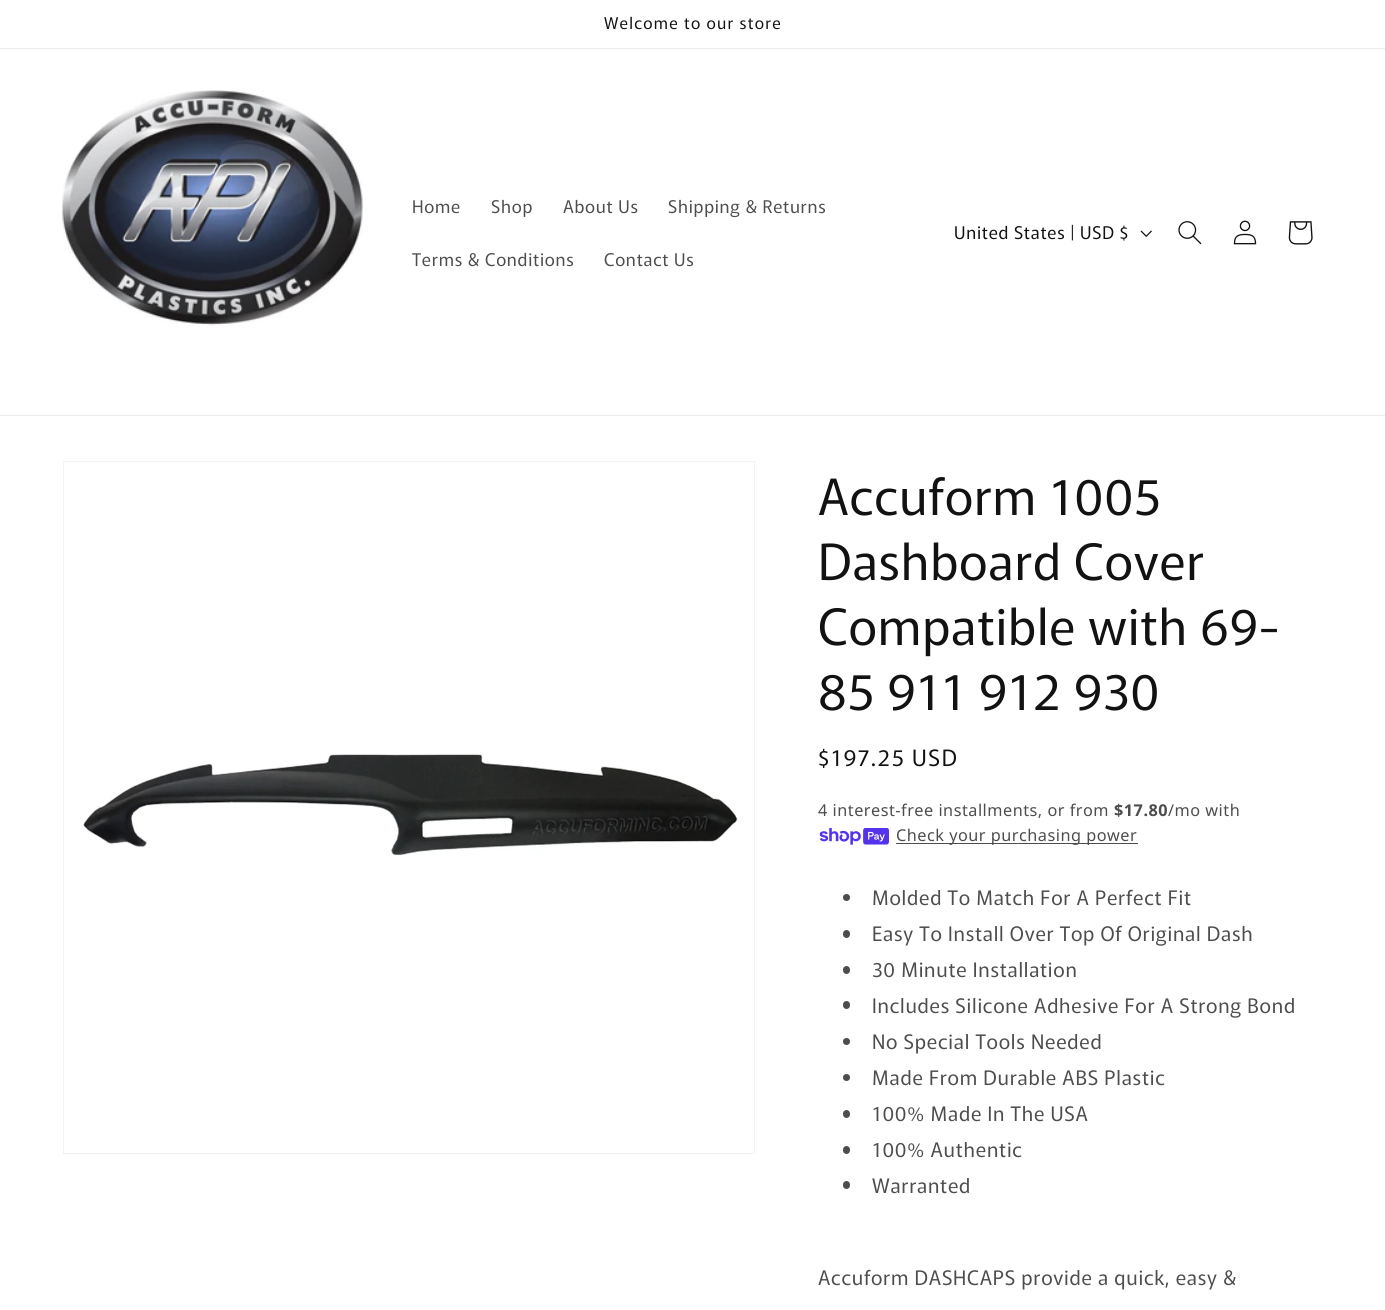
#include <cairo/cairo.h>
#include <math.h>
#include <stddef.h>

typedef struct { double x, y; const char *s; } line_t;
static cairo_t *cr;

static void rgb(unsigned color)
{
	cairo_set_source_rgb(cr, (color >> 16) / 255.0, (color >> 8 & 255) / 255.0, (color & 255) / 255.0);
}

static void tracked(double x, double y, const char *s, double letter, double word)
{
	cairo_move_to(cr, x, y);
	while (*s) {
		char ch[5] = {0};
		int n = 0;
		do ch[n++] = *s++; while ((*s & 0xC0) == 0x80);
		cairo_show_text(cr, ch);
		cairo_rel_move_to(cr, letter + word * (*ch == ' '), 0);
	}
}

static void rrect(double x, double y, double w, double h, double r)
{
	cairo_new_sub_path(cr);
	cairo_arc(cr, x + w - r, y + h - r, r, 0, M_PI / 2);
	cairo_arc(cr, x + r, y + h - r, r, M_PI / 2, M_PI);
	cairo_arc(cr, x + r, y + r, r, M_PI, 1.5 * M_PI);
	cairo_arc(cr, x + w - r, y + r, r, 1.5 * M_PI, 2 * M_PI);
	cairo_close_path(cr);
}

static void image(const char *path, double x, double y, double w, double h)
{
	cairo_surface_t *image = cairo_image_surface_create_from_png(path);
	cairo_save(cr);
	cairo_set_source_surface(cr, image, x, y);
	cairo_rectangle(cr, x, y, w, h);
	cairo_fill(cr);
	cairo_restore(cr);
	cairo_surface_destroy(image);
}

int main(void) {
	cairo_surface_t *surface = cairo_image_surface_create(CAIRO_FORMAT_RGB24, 1385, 1310);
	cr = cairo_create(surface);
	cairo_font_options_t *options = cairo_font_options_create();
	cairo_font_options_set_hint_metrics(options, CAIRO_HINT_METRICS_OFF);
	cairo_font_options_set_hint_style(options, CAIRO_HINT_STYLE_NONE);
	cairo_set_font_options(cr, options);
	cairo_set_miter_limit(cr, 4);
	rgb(0xffffff);
	cairo_paint(cr);
	rgb(0xececec);
	cairo_rectangle(cr, 0, 48, 1385, 1);
	cairo_fill(cr);
	cairo_rectangle(cr, 0, 415, 1385, 1);
	cairo_fill(cr);
	image("img/1.png", 62, 90, 301, 236);
	image("img/2.png", 1140, 230, 12, 7);
	image("img/3.png", 1178, 221, 24, 24);
	image("img/4.png", 1233, 220, 24, 25);
	image("img/5.png", 1288, 221, 25, 24);
	cairo_rectangle(cr, 63.5, 461.5, 691, 692);
	rgb(0xf3f3f3);
	cairo_set_line_width(cr, 1);
	cairo_stroke(cr);
	image("img/6.png", 83, 754, 656, 102);
	image("img/7.png", 819, 828, 70, 17);
	rgb(0x4d4d4d);
	cairo_rectangle(cr, 896, 843, 242, 1);
	cairo_fill(cr);
	cairo_arc(cr, 846.5, 897.5, 3.5, 0, 2 * M_PI);
	cairo_fill(cr);
	rrect(843, 930, 7, 8, 3.5);
	cairo_fill(cr);
	rrect(843, 966, 7, 8, 3.5);
	cairo_fill(cr);
	rrect(843, 1001, 7, 8, 3.5);
	cairo_fill(cr);
	cairo_arc(cr, 846.5, 1041.5, 3.5, 0, 2 * M_PI);
	cairo_fill(cr);
	cairo_arc(cr, 846.5, 1077.5, 3.5, 0, 2 * M_PI);
	cairo_fill(cr);
	rrect(843, 1110, 7, 8, 3.5);
	cairo_fill(cr);
	rrect(843, 1146, 7, 8, 3.5);
	cairo_fill(cr);
	rrect(843, 1181, 7, 8, 3.5);
	cairo_fill(cr);
	cairo_select_font_face(cr, "Murecho", CAIRO_FONT_SLANT_NORMAL, CAIRO_FONT_WEIGHT_NORMAL);
	cairo_set_font_size(cr, 16.25);
	rgb(0x121212);
	tracked(604, 29, "Welcome to our store", 1.25, 0);
	cairo_set_font_size(cr, 17.5);
	rgb(0x4d4d4d);
	{
		static const line_t items[] = {
			{412, 213, "Home"},
			{491, 213, "Shop"},
			{563, 213, "About Us"},
			{668, 213, "Shipping & Returns"},
			{412, 266, "Terms & Conditions"},
			{604, 266, "Contact Us"},
		};
		for (size_t i = 0; i < sizeof items / sizeof *items; i++) {
			tracked(items[i].x, items[i].y, items[i].s, 0.75, 0);
		}
	}
	rgb(0x121212);
	tracked(954, 239, "United States | USD $", 0.75, 0);
	cairo_set_font_size(cr, 50);
	{
		static const line_t items[] = {
			{818, 515, "Accuform 1005"},
			{818, 580, "Dashboard Cover"},
			{818, 645, "Compatible with 69-"},
			{818, 710, "85 911 912 930"},
		};
		for (size_t i = 0; i < sizeof items / sizeof *items; i++) {
			tracked(items[i].x, items[i].y, items[i].s, 0.75, 0);
		}
	}
	cairo_set_font_size(cr, 22.5);
	tracked(818, 766, "$197.25 USD", 1.6, 0);
	cairo_select_font_face(cr, "Noto Sans", CAIRO_FONT_SLANT_NORMAL, CAIRO_FONT_WEIGHT_NORMAL);
	cairo_set_font_size(cr, 16.25);
	rgb(0x4d4d4d);
	tracked(818, 816, "4 interest-free installments, or from", 0.5, 0);
	cairo_select_font_face(cr, "Noto Sans", CAIRO_FONT_SLANT_NORMAL, CAIRO_FONT_WEIGHT_BOLD);
	tracked(1114, 816, "$17.80", 0.5, 0);
	cairo_select_font_face(cr, "Noto Sans", CAIRO_FONT_SLANT_NORMAL, CAIRO_FONT_WEIGHT_NORMAL);
	tracked(1168, 816, "/mo with", 0.5, 0);
	tracked(896, 841, "Check your purchasing power", 0.5, 0);
	cairo_select_font_face(cr, "Murecho", CAIRO_FONT_SLANT_NORMAL, CAIRO_FONT_WEIGHT_NORMAL);
	cairo_set_font_size(cr, 20);
	{
		static const line_t items[] = {
			{872, 905, "Molded To Match For A Perfect Fit"},
			{872, 941, "Easy To Install Over Top Of Original Dash"},
			{872, 977, "30 Minute Installation"},
			{872, 1013, "Includes Silicone Adhesive For A Strong Bond"},
			{872, 1049, "No Special Tools Needed"},
			{872, 1085, "Made From Durable ABS Plastic"},
			{872, 1121, "100% Made In The USA"},
			{872, 1157, "100% Authentic"},
			{872, 1193, "Warranted"},
			{818, 1285, "Accuform DASHCAPS provide a quick, easy &"},
		};
		for (size_t i = 0; i < sizeof items / sizeof *items; i++) {
			tracked(items[i].x, items[i].y, items[i].s, 0.75, 0);
		}
	}
	cairo_surface_write_to_png(surface, "page.png");
	cairo_font_options_destroy(options);
	cairo_destroy(cr);
	cairo_surface_destroy(surface);
	return 0;
}
